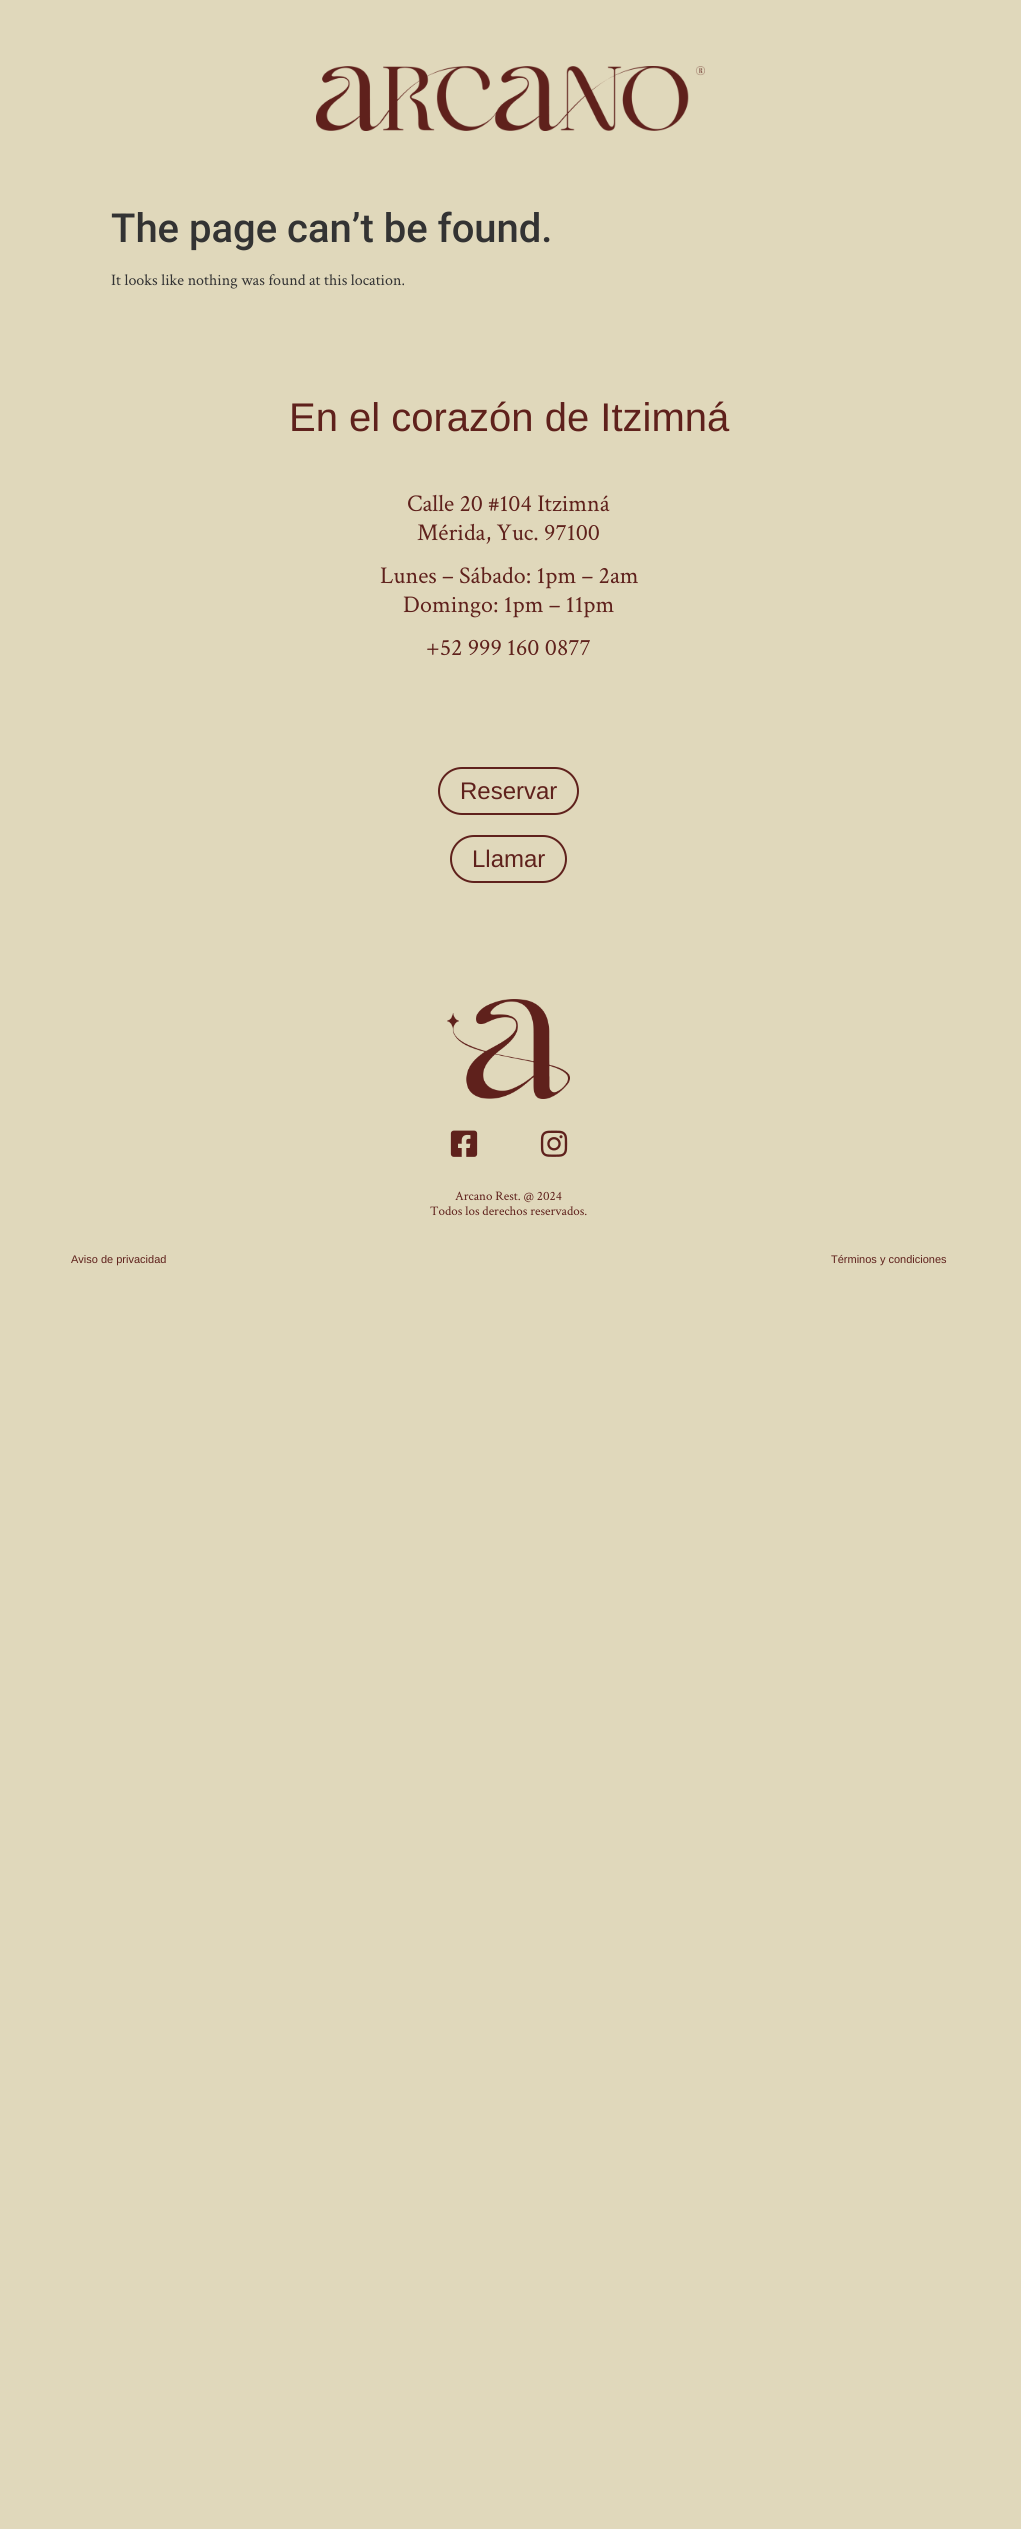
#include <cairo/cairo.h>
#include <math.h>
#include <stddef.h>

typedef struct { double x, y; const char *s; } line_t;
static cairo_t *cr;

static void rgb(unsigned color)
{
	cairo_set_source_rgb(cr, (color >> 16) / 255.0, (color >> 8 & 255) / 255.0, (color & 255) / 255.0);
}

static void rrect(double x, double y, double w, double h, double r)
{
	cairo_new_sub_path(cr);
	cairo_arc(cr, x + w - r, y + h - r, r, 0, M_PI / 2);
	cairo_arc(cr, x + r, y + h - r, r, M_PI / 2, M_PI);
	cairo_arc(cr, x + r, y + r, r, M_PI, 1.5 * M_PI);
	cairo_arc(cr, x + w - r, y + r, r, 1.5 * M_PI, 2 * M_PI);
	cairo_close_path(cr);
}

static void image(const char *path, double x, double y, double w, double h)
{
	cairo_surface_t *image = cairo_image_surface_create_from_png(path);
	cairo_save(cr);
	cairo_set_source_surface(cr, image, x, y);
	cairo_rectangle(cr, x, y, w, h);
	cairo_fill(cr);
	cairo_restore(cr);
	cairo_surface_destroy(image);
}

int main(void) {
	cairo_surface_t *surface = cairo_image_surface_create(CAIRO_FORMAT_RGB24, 1021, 2529);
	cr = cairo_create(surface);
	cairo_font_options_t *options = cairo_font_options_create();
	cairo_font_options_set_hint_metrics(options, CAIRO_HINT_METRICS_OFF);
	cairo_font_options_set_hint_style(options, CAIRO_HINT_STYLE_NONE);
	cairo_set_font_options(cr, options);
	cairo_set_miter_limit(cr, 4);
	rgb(0xe0d8bb);
	cairo_paint(cr);
	image("img/1.png", 316, 66, 389, 65);
	rrect(439, 768, 139, 46, 23);
	rgb(0x5f211c);
	cairo_stroke(cr);
	rrect(451, 836, 115, 46, 23);
	cairo_stroke(cr);
	image("img/2.png", 447, 999, 123, 100);
	image("img/3.png", 450, 1130, 28, 27);
	image("img/4.png", 540, 1130, 28, 27);
	cairo_select_font_face(cr, "Roboto Medium", CAIRO_FONT_SLANT_NORMAL, CAIRO_FONT_WEIGHT_NORMAL);
	cairo_set_font_size(cr, 40);
	rgb(0x333333);
	cairo_move_to(cr, 111, 242);
	cairo_show_text(cr, "The page can’t be found.");
	cairo_select_font_face(cr, "Crimson Text", CAIRO_FONT_SLANT_NORMAL, CAIRO_FONT_WEIGHT_NORMAL);
	cairo_set_font_size(cr, 16);
	cairo_move_to(cr, 111, 285);
	cairo_show_text(cr, "It looks like nothing was found at this location.");
	cairo_select_font_face(cr, "Liberation Sans", CAIRO_FONT_SLANT_NORMAL, CAIRO_FONT_WEIGHT_NORMAL);
	cairo_set_font_size(cr, 40);
	rgb(0x5f211c);
	cairo_move_to(cr, 289, 431);
	cairo_show_text(cr, "En el corazón de Itzimná");
	cairo_select_font_face(cr, "Crimson Text", CAIRO_FONT_SLANT_NORMAL, CAIRO_FONT_WEIGHT_NORMAL);
	cairo_set_font_size(cr, 24);
	{
		static const line_t items[] = {
			{407, 511, "Calle 20 #104 Itzimná"},
			{417, 540, "Mérida, Yuc. 97100"},
			{380, 583, "Lunes – Sábado: 1pm – 2am"},
			{403, 612, "Domingo: 1pm – 11pm"},
			{426, 655, "+52 999 160 0877"},
		};
		for (size_t i = 0; i < sizeof items / sizeof *items; i++) {
			cairo_move_to(cr, items[i].x, items[i].y);
			cairo_show_text(cr, items[i].s);
		}
	}
	cairo_select_font_face(cr, "Liberation Sans", CAIRO_FONT_SLANT_NORMAL, CAIRO_FONT_WEIGHT_NORMAL);
	cairo_move_to(cr, 460, 799);
	cairo_show_text(cr, "Reservar");
	cairo_move_to(cr, 472, 867);
	cairo_show_text(cr, "Llamar");
	cairo_select_font_face(cr, "Crimson Text", CAIRO_FONT_SLANT_NORMAL, CAIRO_FONT_WEIGHT_NORMAL);
	cairo_set_font_size(cr, 13);
	cairo_move_to(cr, 455, 1200);
	cairo_show_text(cr, "Arcano Rest. @ 2024");
	cairo_move_to(cr, 430, 1215);
	cairo_show_text(cr, "Todos los derechos reservados.");
	cairo_select_font_face(cr, "Liberation Sans", CAIRO_FONT_SLANT_NORMAL, CAIRO_FONT_WEIGHT_NORMAL);
	cairo_set_font_size(cr, 11);
	cairo_move_to(cr, 71, 1263);
	cairo_show_text(cr, "Aviso de privacidad");
	cairo_move_to(cr, 831, 1263);
	cairo_show_text(cr, "Términos y condiciones");
	cairo_surface_write_to_png(surface, "page.png");
	cairo_font_options_destroy(options);
	cairo_destroy(cr);
	cairo_surface_destroy(surface);
	return 0;
}
